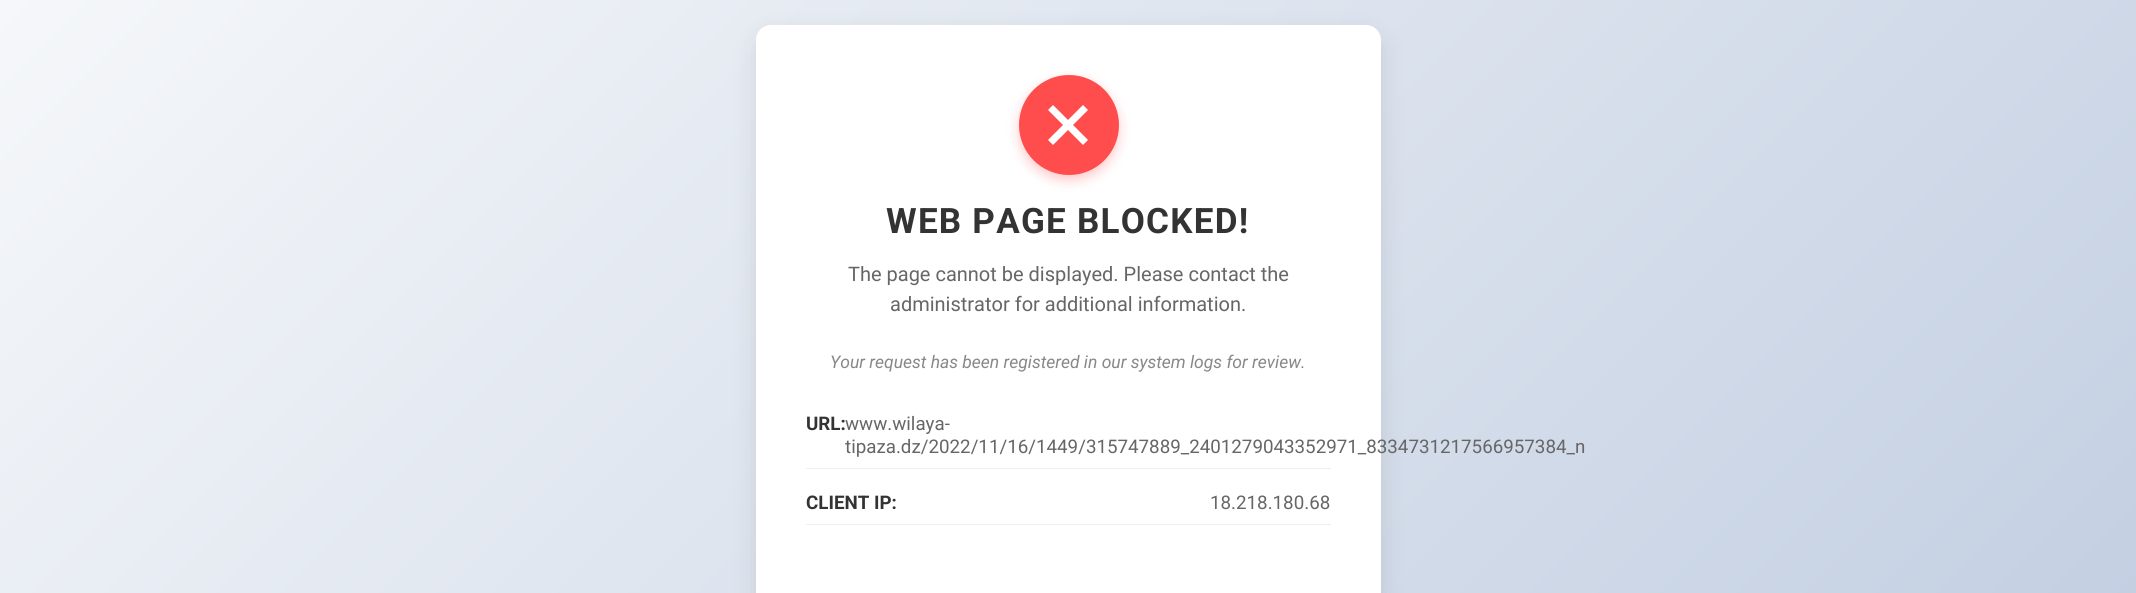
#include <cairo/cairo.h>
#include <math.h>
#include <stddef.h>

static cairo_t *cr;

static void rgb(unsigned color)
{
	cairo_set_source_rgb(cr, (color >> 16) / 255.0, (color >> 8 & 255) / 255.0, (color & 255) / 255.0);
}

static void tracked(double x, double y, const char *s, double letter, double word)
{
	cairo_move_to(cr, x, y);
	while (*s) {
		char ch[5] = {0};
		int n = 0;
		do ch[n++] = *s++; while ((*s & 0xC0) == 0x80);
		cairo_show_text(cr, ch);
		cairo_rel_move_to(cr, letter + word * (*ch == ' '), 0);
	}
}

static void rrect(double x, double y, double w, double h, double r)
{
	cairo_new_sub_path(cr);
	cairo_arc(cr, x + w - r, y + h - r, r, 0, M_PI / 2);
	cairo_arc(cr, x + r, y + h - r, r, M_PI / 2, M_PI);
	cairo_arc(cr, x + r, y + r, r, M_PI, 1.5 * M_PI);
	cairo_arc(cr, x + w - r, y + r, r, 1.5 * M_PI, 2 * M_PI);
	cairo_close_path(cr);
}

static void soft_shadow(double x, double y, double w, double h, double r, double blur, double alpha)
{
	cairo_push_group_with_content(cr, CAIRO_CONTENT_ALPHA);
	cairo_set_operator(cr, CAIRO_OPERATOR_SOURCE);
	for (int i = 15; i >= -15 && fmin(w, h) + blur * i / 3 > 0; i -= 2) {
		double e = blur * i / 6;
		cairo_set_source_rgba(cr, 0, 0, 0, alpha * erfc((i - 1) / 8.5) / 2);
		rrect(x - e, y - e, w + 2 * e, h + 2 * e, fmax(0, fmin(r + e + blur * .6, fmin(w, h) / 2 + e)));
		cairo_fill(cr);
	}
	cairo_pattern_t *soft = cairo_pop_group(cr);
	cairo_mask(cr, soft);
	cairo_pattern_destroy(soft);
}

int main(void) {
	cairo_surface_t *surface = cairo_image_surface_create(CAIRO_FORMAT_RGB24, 2136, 593);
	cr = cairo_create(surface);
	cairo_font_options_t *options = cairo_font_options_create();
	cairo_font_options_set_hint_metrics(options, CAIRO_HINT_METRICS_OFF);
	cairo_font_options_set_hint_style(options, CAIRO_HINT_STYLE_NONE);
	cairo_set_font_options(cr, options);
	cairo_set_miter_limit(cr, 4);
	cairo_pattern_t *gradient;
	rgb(0xffffff);
	cairo_paint(cr);
	gradient = cairo_pattern_create_linear(375, -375, 1762, 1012);
	cairo_pattern_add_color_stop_rgba(gradient, 0, 0.961, 0.969, 0.98, 1);
	cairo_pattern_add_color_stop_rgba(gradient, 1, 0.765, 0.812, 0.886, 1);
	cairo_set_source(cr, gradient);
	cairo_pattern_destroy(gradient);
	cairo_rectangle(cr, 0, 0, 2136, 593);
	cairo_fill(cr);
	rgb(0x000000);
	soft_shadow(756, 35, 625, 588, 15, 12.5, 0.1);
	rgb(0xffffff);
	rrect(756, 25, 625, 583, 15);
	cairo_fill(cr);
	rgb(0xff4d4d);
	soft_shadow(1019, 80, 100, 100, 50, 6, 0.3);
	rgb(0xff4d4d);
	cairo_arc(cr, 1069, 125, 50, 0, 2 * M_PI);
	cairo_fill(cr);
	rgb(0xffffff);
	cairo_new_path(cr);
	cairo_move_to(cr, 1053, 105);
	cairo_line_to(cr, 1088, 140);
	cairo_line_to(cr, 1083, 145);
	cairo_line_to(cr, 1048, 110);
	cairo_close_path(cr);
	cairo_fill(cr);
	cairo_new_path(cr);
	cairo_move_to(cr, 1048, 140);
	cairo_line_to(cr, 1083, 105);
	cairo_line_to(cr, 1088, 110);
	cairo_line_to(cr, 1053, 145);
	cairo_close_path(cr);
	cairo_fill(cr);
	rgb(0xeeeeee);
	cairo_rectangle(cr, 806, 468, 525, 1);
	cairo_fill(cr);
	cairo_rectangle(cr, 806, 524, 525, 1);
	cairo_fill(cr);
	cairo_select_font_face(cr, "Roboto", CAIRO_FONT_SLANT_NORMAL, CAIRO_FONT_WEIGHT_BOLD);
	cairo_set_font_size(cr, 35);
	rgb(0x333333);
	tracked(886, 233, "WEB PAGE BLOCKED!", 1.25, 0);
	cairo_select_font_face(cr, "Roboto", CAIRO_FONT_SLANT_NORMAL, CAIRO_FONT_WEIGHT_NORMAL);
	cairo_set_font_size(cr, 20);
	rgb(0x666666);
	cairo_move_to(cr, 848, 281);
	cairo_show_text(cr, "The page cannot be displayed. Please contact the");
	cairo_move_to(cr, 890, 311);
	cairo_show_text(cr, "administrator for additional information.");
	cairo_select_font_face(cr, "Roboto", CAIRO_FONT_SLANT_ITALIC, CAIRO_FONT_WEIGHT_NORMAL);
	cairo_set_font_size(cr, 17.5);
	rgb(0x888888);
	cairo_move_to(cr, 830, 368);
	cairo_show_text(cr, "Your request has been registered in our system logs for review.");
	cairo_select_font_face(cr, "Roboto", CAIRO_FONT_SLANT_NORMAL, CAIRO_FONT_WEIGHT_BOLD);
	cairo_set_font_size(cr, 18.75);
	rgb(0x333333);
	cairo_move_to(cr, 806, 430);
	cairo_show_text(cr, "URL:");
	cairo_select_font_face(cr, "Roboto", CAIRO_FONT_SLANT_NORMAL, CAIRO_FONT_WEIGHT_NORMAL);
	rgb(0x666666);
	cairo_move_to(cr, 845, 430);
	cairo_show_text(cr, "www.wilaya-");
	cairo_move_to(cr, 845, 453);
	cairo_show_text(cr, "tipaza.dz/2022/11/16/1449/315747889_2401279043352971_8334731217566957384_n");
	cairo_select_font_face(cr, "Roboto", CAIRO_FONT_SLANT_NORMAL, CAIRO_FONT_WEIGHT_BOLD);
	rgb(0x333333);
	cairo_move_to(cr, 806, 509);
	cairo_show_text(cr, "CLIENT IP:");
	cairo_select_font_face(cr, "Roboto", CAIRO_FONT_SLANT_NORMAL, CAIRO_FONT_WEIGHT_NORMAL);
	rgb(0x666666);
	cairo_move_to(cr, 1210, 509);
	cairo_show_text(cr, "18.218.180.68");
	cairo_surface_write_to_png(surface, "page.png");
	cairo_font_options_destroy(options);
	cairo_destroy(cr);
	cairo_surface_destroy(surface);
	return 0;
}
